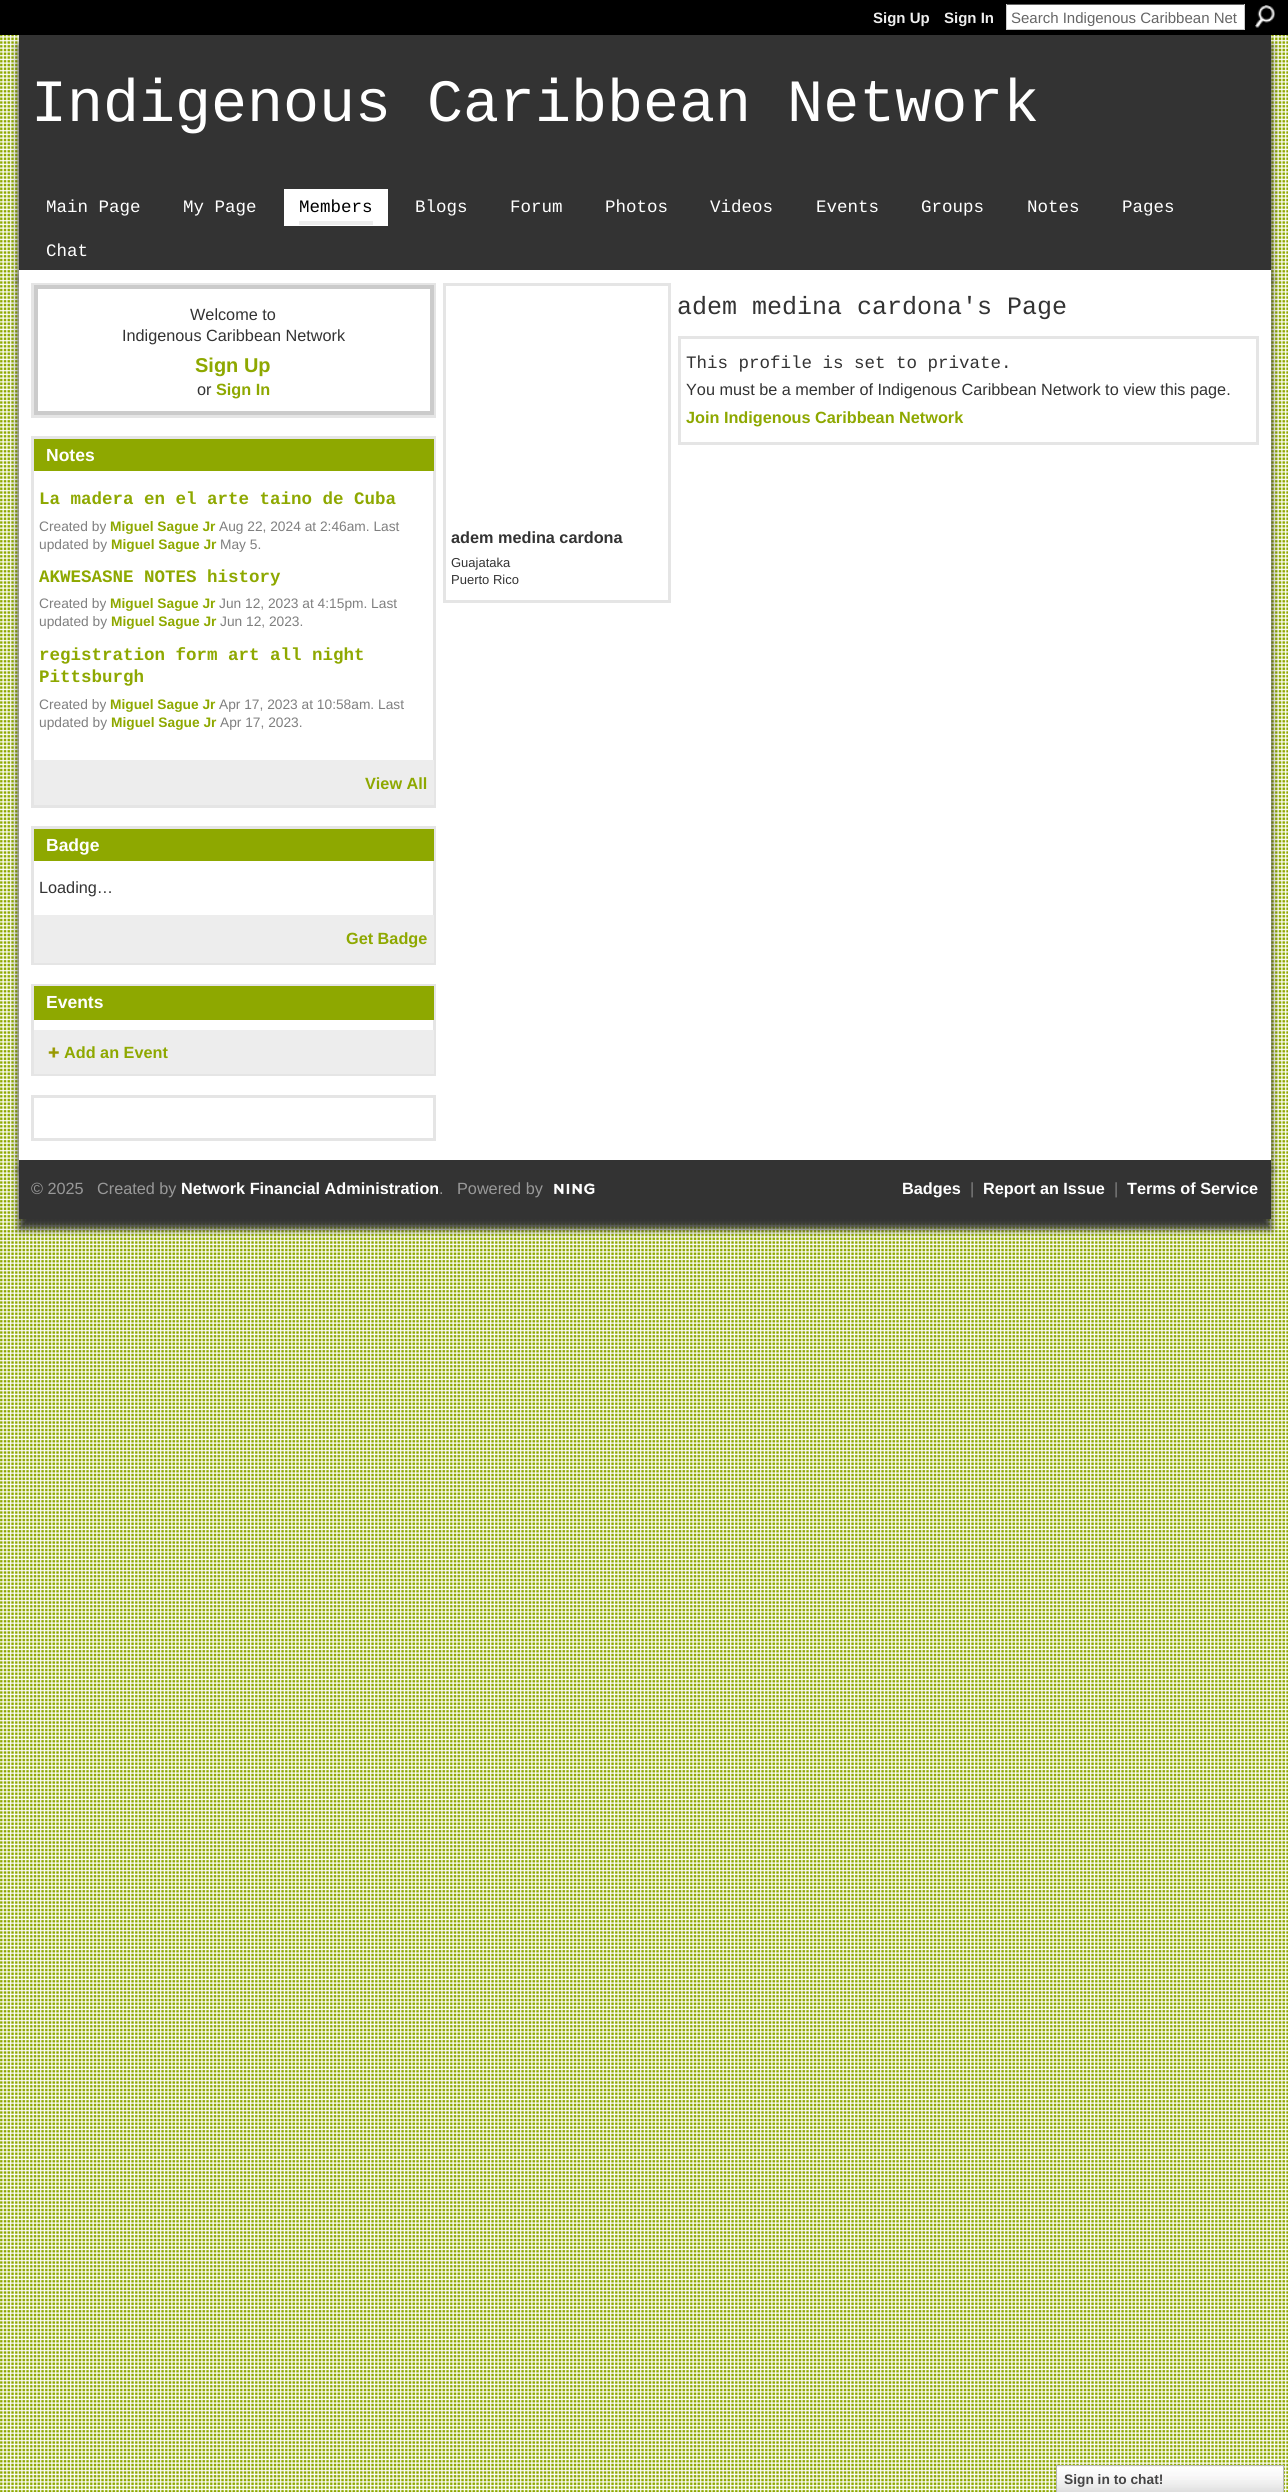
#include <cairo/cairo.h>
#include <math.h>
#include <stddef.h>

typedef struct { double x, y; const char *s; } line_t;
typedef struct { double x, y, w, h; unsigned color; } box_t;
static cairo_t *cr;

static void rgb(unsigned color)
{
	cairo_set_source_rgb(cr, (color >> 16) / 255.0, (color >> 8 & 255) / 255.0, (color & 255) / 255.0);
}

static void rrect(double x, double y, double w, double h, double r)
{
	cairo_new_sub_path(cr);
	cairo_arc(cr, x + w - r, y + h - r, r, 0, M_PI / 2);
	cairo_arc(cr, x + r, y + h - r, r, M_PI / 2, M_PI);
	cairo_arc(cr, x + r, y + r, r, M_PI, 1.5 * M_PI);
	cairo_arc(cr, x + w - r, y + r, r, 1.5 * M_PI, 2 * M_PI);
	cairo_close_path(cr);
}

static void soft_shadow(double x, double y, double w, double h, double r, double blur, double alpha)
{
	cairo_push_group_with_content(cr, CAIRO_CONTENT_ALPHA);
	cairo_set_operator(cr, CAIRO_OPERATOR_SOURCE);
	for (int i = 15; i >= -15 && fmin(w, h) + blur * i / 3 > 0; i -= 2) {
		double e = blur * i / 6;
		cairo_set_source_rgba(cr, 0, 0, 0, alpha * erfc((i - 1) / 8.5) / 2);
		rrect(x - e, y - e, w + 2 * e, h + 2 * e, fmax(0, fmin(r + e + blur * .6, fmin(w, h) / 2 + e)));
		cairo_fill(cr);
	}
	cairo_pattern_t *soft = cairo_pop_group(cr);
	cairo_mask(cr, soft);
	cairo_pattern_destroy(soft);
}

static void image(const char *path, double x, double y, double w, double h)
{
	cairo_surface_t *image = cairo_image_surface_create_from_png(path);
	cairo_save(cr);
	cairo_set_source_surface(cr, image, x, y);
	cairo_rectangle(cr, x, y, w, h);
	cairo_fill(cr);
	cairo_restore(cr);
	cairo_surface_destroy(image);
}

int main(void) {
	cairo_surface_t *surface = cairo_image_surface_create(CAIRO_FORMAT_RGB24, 1288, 2492);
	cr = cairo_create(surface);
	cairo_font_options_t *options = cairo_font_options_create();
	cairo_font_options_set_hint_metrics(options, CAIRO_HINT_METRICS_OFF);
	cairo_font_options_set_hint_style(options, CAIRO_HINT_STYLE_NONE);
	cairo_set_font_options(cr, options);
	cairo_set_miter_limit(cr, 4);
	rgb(0x8ea800);
	cairo_paint(cr);
	image("img/1.png", 0, 35, 1288, 2457);
	{
		static const box_t items[] = {
			{0, 0, 1288, 35, 0x000000},
			{1007, 5, 237, 24, 0xffffff},
			{1006, 4, 239, 1, 0x666666},
			{1244, 4, 1, 26, 0xcccccc},
			{1006, 29, 239, 1, 0xcccccc},
			{1006, 4, 1, 26, 0xcccccc},
		};
		for (size_t i = 0; i < sizeof items / sizeof *items; i++) {
			rgb(items[i].color);
			cairo_rectangle(cr, items[i].x, items[i].y, items[i].w, items[i].h);
			cairo_fill(cr);
		}
	}
	image("img/2.png", 1255, 5, 20, 23);
	rgb(0x333333);
	soft_shadow(19, 45, 1252, 235, 0, 4, 1);
	{
		static const box_t items[] = {
			{19, 35, 1252, 235, 0x333333},
			{284, 189, 104, 37, 0xffffff},
			{299, 221, 74, 4, 0xededed},
		};
		for (size_t i = 0; i < sizeof items / sizeof *items; i++) {
			rgb(items[i].color);
			cairo_rectangle(cr, items[i].x, items[i].y, items[i].w, items[i].h);
			cairo_fill(cr);
		}
	}
	rgb(0x333333);
	soft_shadow(19, 280, 1252, 890, 0, 4, 1);
	rgb(0xffffff);
	cairo_rectangle(cr, 19, 270, 1252, 890);
	cairo_fill(cr);
	cairo_rectangle(cr, 32.5, 284.5, 402, 132);
	rgb(0xe5e5e5);
	cairo_set_line_width(cr, 3);
	cairo_stroke(cr);
	cairo_rectangle(cr, 36, 287, 396, 126);
	rgb(0xcbcbcb);
	cairo_set_line_width(cr, 4);
	cairo_stroke(cr);
	cairo_rectangle(cr, 32.5, 437.5, 402, 369);
	rgb(0xe5e5e5);
	cairo_set_line_width(cr, 3);
	cairo_stroke(cr);
	rgb(0x8ea800);
	cairo_rectangle(cr, 34, 439, 400, 32);
	cairo_fill(cr);
	rgb(0xededed);
	cairo_rectangle(cr, 34, 760, 400, 45);
	cairo_fill(cr);
	cairo_rectangle(cr, 32.5, 827.5, 402, 136);
	rgb(0xe5e5e5);
	cairo_stroke(cr);
	rgb(0x8ea800);
	cairo_rectangle(cr, 34, 829, 400, 32);
	cairo_fill(cr);
	rgb(0xededed);
	cairo_rectangle(cr, 34, 915, 400, 48);
	cairo_fill(cr);
	cairo_rectangle(cr, 32.5, 985.5, 402, 89);
	rgb(0xe5e5e5);
	cairo_stroke(cr);
	rgb(0x8ea800);
	cairo_rectangle(cr, 34, 986, 400, 34);
	cairo_fill(cr);
	rgb(0xededed);
	cairo_rectangle(cr, 34, 1030, 400, 44);
	cairo_fill(cr);
	image("img/3.png", 48, 1047, 11, 11);
	cairo_rectangle(cr, 32.5, 1096.5, 402, 43);
	rgb(0xe5e5e5);
	cairo_stroke(cr);
	cairo_rectangle(cr, 679.5, 337.5, 578, 106);
	cairo_stroke(cr);
	cairo_rectangle(cr, 444.5, 284.5, 225, 317);
	cairo_stroke(cr);
	rgb(0x333333);
	soft_shadow(19, 1170, 1252, 59, 0, 4, 1);
	rgb(0x333333);
	cairo_rectangle(cr, 19, 1160, 1252, 59);
	cairo_fill(cr);
	image("img/4.png", 554, 1183, 41, 12);
	image("img/5.png", 1057, 2466, 226, 26);
	cairo_rectangle(cr, 1056.5, 2465.5, 227, 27);
	rgb(0xb7b7b7);
	cairo_set_line_width(cr, 1);
	cairo_stroke(cr);
	cairo_set_source_rgba(cr, 0.992, 0.992, 0.992, 0.56);
	cairo_rectangle(cr, 1065, 2466, 32, 1);
	cairo_fill(cr);
	cairo_select_font_face(cr, "Liberation Sans", CAIRO_FONT_SLANT_NORMAL, CAIRO_FONT_WEIGHT_BOLD);
	cairo_set_font_size(cr, 15);
	rgb(0xeeeeee);
	cairo_move_to(cr, 873, 23);
	cairo_show_text(cr, "Sign Up");
	cairo_move_to(cr, 944, 23);
	cairo_show_text(cr, "Sign In");
	cairo_select_font_face(cr, "Liberation Sans", CAIRO_FONT_SLANT_NORMAL, CAIRO_FONT_WEIGHT_NORMAL);
	rgb(0x666666);
	cairo_move_to(cr, 1011, 23);
	cairo_show_text(cr, "Search Indigenous Caribbean Net");
	cairo_select_font_face(cr, "Liberation Mono", CAIRO_FONT_SLANT_NORMAL, CAIRO_FONT_WEIGHT_NORMAL);
	cairo_set_font_size(cr, 60);
	rgb(0xffffff);
	cairo_move_to(cr, 31, 121);
	cairo_show_text(cr, "Indigenous Caribbean Network");
	cairo_set_font_size(cr, 17.5);
	cairo_move_to(cr, 46, 212);
	cairo_show_text(cr, "Main Page");
	cairo_move_to(cr, 183, 212);
	cairo_show_text(cr, "My Page");
	rgb(0x000000);
	cairo_move_to(cr, 299, 212);
	cairo_show_text(cr, "Members");
	rgb(0xffffff);
	{
		static const line_t items[] = {
			{415, 212, "Blogs"},
			{510, 212, "Forum"},
			{605, 212, "Photos"},
			{710, 212, "Videos"},
			{816, 212, "Events"},
			{921, 212, "Groups"},
			{1027, 212, "Notes"},
			{1122, 212, "Pages"},
			{46, 256, "Chat"},
		};
		for (size_t i = 0; i < sizeof items / sizeof *items; i++) {
			cairo_move_to(cr, items[i].x, items[i].y);
			cairo_show_text(cr, items[i].s);
		}
	}
	cairo_select_font_face(cr, "Liberation Sans", CAIRO_FONT_SLANT_NORMAL, CAIRO_FONT_WEIGHT_NORMAL);
	cairo_set_font_size(cr, 16.25);
	rgb(0x333333);
	cairo_move_to(cr, 190, 320);
	cairo_show_text(cr, "Welcome to");
	cairo_move_to(cr, 122, 341);
	cairo_show_text(cr, "Indigenous Caribbean Network");
	cairo_select_font_face(cr, "Liberation Sans", CAIRO_FONT_SLANT_NORMAL, CAIRO_FONT_WEIGHT_BOLD);
	cairo_set_font_size(cr, 20);
	rgb(0x8ea800);
	cairo_move_to(cr, 195, 372);
	cairo_show_text(cr, "Sign Up");
	cairo_select_font_face(cr, "Liberation Sans", CAIRO_FONT_SLANT_NORMAL, CAIRO_FONT_WEIGHT_NORMAL);
	cairo_set_font_size(cr, 16.25);
	rgb(0x333333);
	cairo_move_to(cr, 197, 395);
	cairo_show_text(cr, "or");
	cairo_select_font_face(cr, "Liberation Sans", CAIRO_FONT_SLANT_NORMAL, CAIRO_FONT_WEIGHT_BOLD);
	rgb(0x8ea800);
	cairo_move_to(cr, 216, 395);
	cairo_show_text(cr, "Sign In");
	cairo_set_font_size(cr, 17.5);
	rgb(0xffffff);
	cairo_move_to(cr, 46, 461);
	cairo_show_text(cr, "Notes");
	cairo_select_font_face(cr, "Liberation Mono", CAIRO_FONT_SLANT_NORMAL, CAIRO_FONT_WEIGHT_BOLD);
	rgb(0x8ea800);
	cairo_move_to(cr, 39, 504);
	cairo_show_text(cr, "La madera en el arte taino de Cuba");
	cairo_select_font_face(cr, "Liberation Sans", CAIRO_FONT_SLANT_NORMAL, CAIRO_FONT_WEIGHT_NORMAL);
	cairo_set_font_size(cr, 13.75);
	rgb(0x7f7f7f);
	cairo_move_to(cr, 39, 531);
	cairo_show_text(cr, "Created by");
	cairo_select_font_face(cr, "Liberation Sans", CAIRO_FONT_SLANT_NORMAL, CAIRO_FONT_WEIGHT_BOLD);
	rgb(0x8ea800);
	cairo_move_to(cr, 110, 531);
	cairo_show_text(cr, "Miguel Sague Jr");
	cairo_select_font_face(cr, "Liberation Sans", CAIRO_FONT_SLANT_NORMAL, CAIRO_FONT_WEIGHT_NORMAL);
	rgb(0x7f7f7f);
	cairo_move_to(cr, 219, 531);
	cairo_show_text(cr, "Aug 22, 2024 at 2:46am. Last");
	cairo_move_to(cr, 39, 549);
	cairo_show_text(cr, "updated by");
	cairo_select_font_face(cr, "Liberation Sans", CAIRO_FONT_SLANT_NORMAL, CAIRO_FONT_WEIGHT_BOLD);
	rgb(0x8ea800);
	cairo_move_to(cr, 111, 549);
	cairo_show_text(cr, "Miguel Sague Jr");
	cairo_select_font_face(cr, "Liberation Sans", CAIRO_FONT_SLANT_NORMAL, CAIRO_FONT_WEIGHT_NORMAL);
	rgb(0x7f7f7f);
	cairo_move_to(cr, 220, 549);
	cairo_show_text(cr, "May 5.");
	cairo_select_font_face(cr, "Liberation Mono", CAIRO_FONT_SLANT_NORMAL, CAIRO_FONT_WEIGHT_BOLD);
	cairo_set_font_size(cr, 17.5);
	rgb(0x8ea800);
	cairo_move_to(cr, 39, 582);
	cairo_show_text(cr, "AKWESASNE NOTES history");
	cairo_select_font_face(cr, "Liberation Sans", CAIRO_FONT_SLANT_NORMAL, CAIRO_FONT_WEIGHT_NORMAL);
	cairo_set_font_size(cr, 13.75);
	rgb(0x7f7f7f);
	cairo_move_to(cr, 39, 608);
	cairo_show_text(cr, "Created by");
	cairo_select_font_face(cr, "Liberation Sans", CAIRO_FONT_SLANT_NORMAL, CAIRO_FONT_WEIGHT_BOLD);
	rgb(0x8ea800);
	cairo_move_to(cr, 110, 608);
	cairo_show_text(cr, "Miguel Sague Jr");
	cairo_select_font_face(cr, "Liberation Sans", CAIRO_FONT_SLANT_NORMAL, CAIRO_FONT_WEIGHT_NORMAL);
	rgb(0x7f7f7f);
	cairo_move_to(cr, 219, 608);
	cairo_show_text(cr, "Jun 12, 2023 at 4:15pm. Last");
	cairo_move_to(cr, 39, 626);
	cairo_show_text(cr, "updated by");
	cairo_select_font_face(cr, "Liberation Sans", CAIRO_FONT_SLANT_NORMAL, CAIRO_FONT_WEIGHT_BOLD);
	rgb(0x8ea800);
	cairo_move_to(cr, 111, 626);
	cairo_show_text(cr, "Miguel Sague Jr");
	cairo_select_font_face(cr, "Liberation Sans", CAIRO_FONT_SLANT_NORMAL, CAIRO_FONT_WEIGHT_NORMAL);
	rgb(0x7f7f7f);
	cairo_move_to(cr, 220, 626);
	cairo_show_text(cr, "Jun 12, 2023.");
	cairo_select_font_face(cr, "Liberation Mono", CAIRO_FONT_SLANT_NORMAL, CAIRO_FONT_WEIGHT_BOLD);
	cairo_set_font_size(cr, 17.5);
	rgb(0x8ea800);
	cairo_move_to(cr, 39, 660);
	cairo_show_text(cr, "registration form art all night");
	cairo_move_to(cr, 39, 682);
	cairo_show_text(cr, "Pittsburgh");
	cairo_select_font_face(cr, "Liberation Sans", CAIRO_FONT_SLANT_NORMAL, CAIRO_FONT_WEIGHT_NORMAL);
	cairo_set_font_size(cr, 13.75);
	rgb(0x7f7f7f);
	cairo_move_to(cr, 39, 709);
	cairo_show_text(cr, "Created by");
	cairo_select_font_face(cr, "Liberation Sans", CAIRO_FONT_SLANT_NORMAL, CAIRO_FONT_WEIGHT_BOLD);
	rgb(0x8ea800);
	cairo_move_to(cr, 110, 709);
	cairo_show_text(cr, "Miguel Sague Jr");
	cairo_select_font_face(cr, "Liberation Sans", CAIRO_FONT_SLANT_NORMAL, CAIRO_FONT_WEIGHT_NORMAL);
	rgb(0x7f7f7f);
	cairo_move_to(cr, 219, 709);
	cairo_show_text(cr, "Apr 17, 2023 at 10:58am. Last");
	cairo_move_to(cr, 39, 727);
	cairo_show_text(cr, "updated by");
	cairo_select_font_face(cr, "Liberation Sans", CAIRO_FONT_SLANT_NORMAL, CAIRO_FONT_WEIGHT_BOLD);
	rgb(0x8ea800);
	cairo_move_to(cr, 111, 727);
	cairo_show_text(cr, "Miguel Sague Jr");
	cairo_select_font_face(cr, "Liberation Sans", CAIRO_FONT_SLANT_NORMAL, CAIRO_FONT_WEIGHT_NORMAL);
	rgb(0x7f7f7f);
	cairo_move_to(cr, 220, 727);
	cairo_show_text(cr, "Apr 17, 2023.");
	cairo_select_font_face(cr, "Liberation Sans", CAIRO_FONT_SLANT_NORMAL, CAIRO_FONT_WEIGHT_BOLD);
	cairo_set_font_size(cr, 16.25);
	rgb(0x8ea800);
	cairo_move_to(cr, 365, 789);
	cairo_show_text(cr, "View All");
	cairo_set_font_size(cr, 17.5);
	rgb(0xffffff);
	cairo_move_to(cr, 46, 851);
	cairo_show_text(cr, "Badge");
	cairo_select_font_face(cr, "Liberation Sans", CAIRO_FONT_SLANT_NORMAL, CAIRO_FONT_WEIGHT_NORMAL);
	cairo_set_font_size(cr, 16.25);
	rgb(0x333333);
	cairo_move_to(cr, 39, 893);
	cairo_show_text(cr, "Loading…");
	cairo_select_font_face(cr, "Liberation Sans", CAIRO_FONT_SLANT_NORMAL, CAIRO_FONT_WEIGHT_BOLD);
	rgb(0x8ea800);
	cairo_move_to(cr, 346, 944);
	cairo_show_text(cr, "Get Badge");
	cairo_set_font_size(cr, 17.5);
	rgb(0xffffff);
	cairo_move_to(cr, 46, 1008);
	cairo_show_text(cr, "Events");
	cairo_set_font_size(cr, 16.25);
	rgb(0x8ea800);
	cairo_move_to(cr, 64, 1058);
	cairo_show_text(cr, "Add an Event");
	cairo_select_font_face(cr, "Liberation Mono", CAIRO_FONT_SLANT_NORMAL, CAIRO_FONT_WEIGHT_NORMAL);
	cairo_set_font_size(cr, 25);
	rgb(0x333333);
	cairo_move_to(cr, 677, 314);
	cairo_show_text(cr, "adem medina cardona's Page");
	cairo_set_font_size(cr, 17.5);
	cairo_move_to(cr, 686, 368);
	cairo_show_text(cr, "This profile is set to private.");
	cairo_select_font_face(cr, "Liberation Sans", CAIRO_FONT_SLANT_NORMAL, CAIRO_FONT_WEIGHT_NORMAL);
	cairo_set_font_size(cr, 16.25);
	cairo_move_to(cr, 686, 395);
	cairo_show_text(cr, "You must be a member of Indigenous Caribbean Network to view this page.");
	cairo_select_font_face(cr, "Liberation Sans", CAIRO_FONT_SLANT_NORMAL, CAIRO_FONT_WEIGHT_BOLD);
	rgb(0x8ea800);
	cairo_move_to(cr, 686, 423);
	cairo_show_text(cr, "Join Indigenous Caribbean Network");
	rgb(0x333333);
	cairo_move_to(cr, 451, 543);
	cairo_show_text(cr, "adem medina cardona");
	cairo_select_font_face(cr, "Liberation Sans", CAIRO_FONT_SLANT_NORMAL, CAIRO_FONT_WEIGHT_NORMAL);
	cairo_set_font_size(cr, 13);
	cairo_move_to(cr, 451, 567);
	cairo_show_text(cr, "Guajataka");
	cairo_move_to(cr, 451, 584);
	cairo_show_text(cr, "Puerto Rico");
	cairo_set_font_size(cr, 16.25);
	rgb(0x999999);
	cairo_move_to(cr, 31, 1194);
	cairo_show_text(cr, "© 2025");
	cairo_move_to(cr, 97, 1194);
	cairo_show_text(cr, "Created by");
	cairo_select_font_face(cr, "Liberation Sans", CAIRO_FONT_SLANT_NORMAL, CAIRO_FONT_WEIGHT_BOLD);
	rgb(0xffffff);
	cairo_move_to(cr, 181, 1194);
	cairo_show_text(cr, "Network Financial Administration");
	cairo_select_font_face(cr, "Liberation Sans", CAIRO_FONT_SLANT_NORMAL, CAIRO_FONT_WEIGHT_NORMAL);
	rgb(0x999999);
	cairo_move_to(cr, 439, 1194);
	cairo_show_text(cr, ".");
	cairo_move_to(cr, 457, 1194);
	cairo_show_text(cr, "Powered by");
	cairo_select_font_face(cr, "Liberation Sans", CAIRO_FONT_SLANT_NORMAL, CAIRO_FONT_WEIGHT_BOLD);
	rgb(0xffffff);
	cairo_move_to(cr, 902, 1194);
	cairo_show_text(cr, "Badges");
	cairo_select_font_face(cr, "Liberation Sans", CAIRO_FONT_SLANT_NORMAL, CAIRO_FONT_WEIGHT_NORMAL);
	rgb(0x7f7f7f);
	cairo_move_to(cr, 970, 1194);
	cairo_show_text(cr, "|");
	cairo_select_font_face(cr, "Liberation Sans", CAIRO_FONT_SLANT_NORMAL, CAIRO_FONT_WEIGHT_BOLD);
	rgb(0xffffff);
	cairo_move_to(cr, 983, 1194);
	cairo_show_text(cr, "Report an Issue");
	cairo_select_font_face(cr, "Liberation Sans", CAIRO_FONT_SLANT_NORMAL, CAIRO_FONT_WEIGHT_NORMAL);
	rgb(0x7f7f7f);
	cairo_move_to(cr, 1114, 1194);
	cairo_show_text(cr, "|");
	cairo_select_font_face(cr, "Liberation Sans", CAIRO_FONT_SLANT_NORMAL, CAIRO_FONT_WEIGHT_BOLD);
	rgb(0xffffff);
	cairo_move_to(cr, 1127, 1194);
	cairo_show_text(cr, "Terms of Service");
	cairo_set_font_size(cr, 13.75);
	rgb(0x454545);
	cairo_move_to(cr, 1064, 2484);
	cairo_show_text(cr, "Sign in to chat!");
	cairo_surface_write_to_png(surface, "page.png");
	cairo_font_options_destroy(options);
	cairo_destroy(cr);
	cairo_surface_destroy(surface);
	return 0;
}
